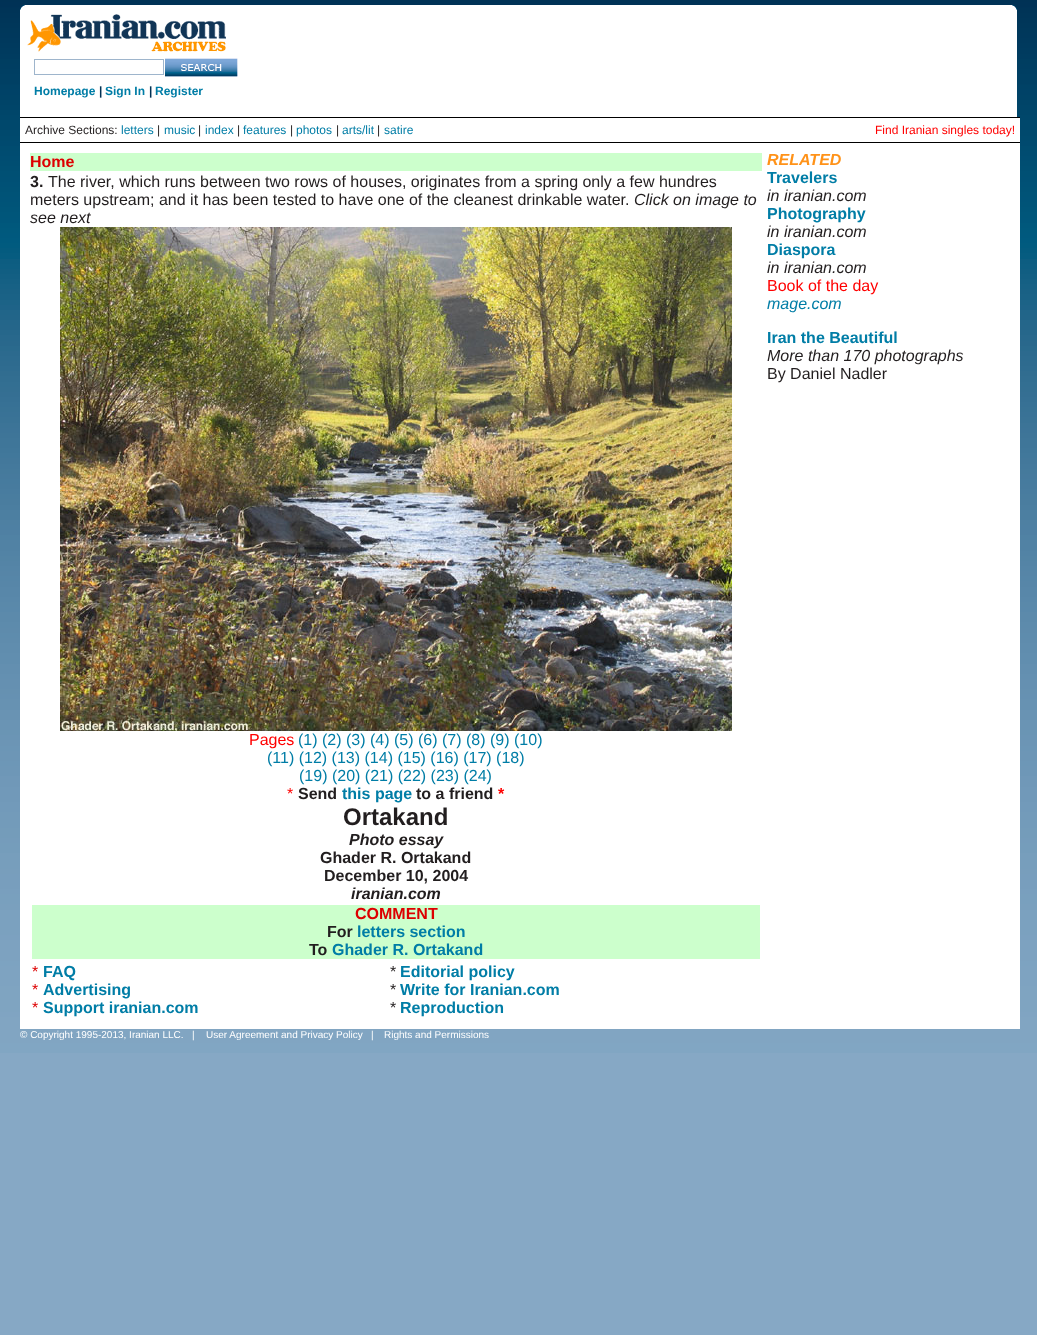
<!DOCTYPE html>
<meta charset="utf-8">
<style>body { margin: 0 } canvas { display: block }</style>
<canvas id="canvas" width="1037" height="1335"></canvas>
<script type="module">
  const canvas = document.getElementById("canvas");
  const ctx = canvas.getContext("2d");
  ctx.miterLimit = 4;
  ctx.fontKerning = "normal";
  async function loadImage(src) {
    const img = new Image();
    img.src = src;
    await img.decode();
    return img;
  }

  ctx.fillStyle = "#86a8c5";
  ctx.fillRect(0, 0, 1037, 1335);
  ctx.drawImage(await loadImage("img1.png"), 0, 0, 1037, 1053);
  ctx.fillStyle = "#ffffff";
  ctx.fillRect(20, 10, 997, 107);
  ctx.drawImage(await loadImage("img2.png"), 20, 5, 997, 5);
  ctx.drawImage(await loadImage("img3.png"), 27, 14, 199, 38);
  ctx.strokeStyle = "#9eb5cc";
  ctx.strokeRect(34.5, 59.5, 129, 15);
  ctx.drawImage(await loadImage("img4.png"), 165, 58, 73, 19);
  ctx.font = "bold 12px Liberation Sans";
  ctx.fillStyle = "#007da6";
  ctx.fillText("Homepage", 34, 95);
  ctx.fillStyle = "#003154";
  ctx.fillText("|", 99, 95);
  ctx.fillStyle = "#007da6";
  ctx.fillText("Sign In", 105, 95);
  ctx.fillStyle = "#003154";
  ctx.fillText("|", 149, 95);
  ctx.fillStyle = "#007da6";
  ctx.fillText("Register", 155, 95);
  ctx.fillStyle = "#ffffff";
  ctx.fillRect(20, 118, 1000, 24);
  ctx.fillStyle = "#000000";
  ctx.fillRect(20, 117, 1000, 1);
  ctx.font = "12px Liberation Sans";
  ctx.fillStyle = "#221e1f";
  ctx.fillText("Archive Sections:", 25, 134);
  ctx.fillStyle = "#007da6";
  ctx.fillText("letters", 121, 134);
  ctx.fillStyle = "#221e1f";
  ctx.fillText("|", 157, 134);
  ctx.fillStyle = "#007da6";
  ctx.fillText("music", 164, 134);
  ctx.fillStyle = "#221e1f";
  ctx.fillText("|", 198, 134);
  ctx.fillStyle = "#007da6";
  ctx.fillText("index", 205, 134);
  ctx.fillStyle = "#221e1f";
  ctx.fillText("|", 237, 134);
  ctx.fillStyle = "#007da6";
  ctx.fillText("features", 243, 134);
  ctx.fillStyle = "#221e1f";
  ctx.fillText("|", 290, 134);
  ctx.fillStyle = "#007da6";
  ctx.fillText("photos", 296, 134);
  ctx.fillStyle = "#221e1f";
  ctx.fillText("|", 336, 134);
  ctx.fillStyle = "#007da6";
  ctx.fillText("arts/lit", 342, 134);
  ctx.fillStyle = "#221e1f";
  ctx.fillText("|", 377, 134);
  ctx.fillStyle = "#007da6";
  ctx.fillText("satire", 384, 134);
  ctx.fillStyle = "#ff0000";
  ctx.fillText("Find Iranian singles today!", 875, 134);
  ctx.fillStyle = "#ffffff";
  ctx.fillRect(20, 143, 1000, 886);
  ctx.fillStyle = "#000000";
  ctx.fillRect(20, 142, 1000, 1);
  ctx.fillStyle = "#ccffcc";
  ctx.fillRect(30, 153, 732, 18);
  ctx.font = "bold 16px Liberation Sans";
  ctx.fillStyle = "#dd0000";
  ctx.fillText("Home", 30, 167);
  ctx.fillStyle = "#221e1f";
  ctx.fillText("3.", 30, 187);
  ctx.font = "16px Liberation Sans";
  ctx.fillText("The river, which runs between two rows of houses, originates from a spring only a few hundres", 48, 187);
  ctx.fillText("meters upstream; and it has been tested to have one of the cleanest drinkable water.", 30, 205);
  ctx.font = "italic 16px Liberation Sans";
  ctx.fillText("Click on image to", 634, 205);
  ctx.fillText("see next", 30, 223);
  ctx.drawImage(await loadImage("img5.png"), 60, 227, 672, 504);
  ctx.font = "16px Liberation Sans";
  ctx.fillStyle = "#ff0000";
  ctx.fillText("Pages", 249, 745);
  ctx.fillStyle = "#007da6";
  ctx.fillText("(1) (2) (3) (4) (5) (6) (7) (8) (9) (10)", 298, 745);
  ctx.fillText("(11) (12) (13) (14) (15) (16) (17) (18)", 267, 763);
  ctx.fillText("(19) (20) (21) (22) (23) (24)", 299, 781);
  ctx.fillStyle = "#ff0000";
  ctx.fillText("*", 287, 799);
  ctx.font = "bold 16px Liberation Sans";
  ctx.fillStyle = "#221e1f";
  ctx.fillText("Send", 298, 799);
  ctx.fillStyle = "#007da6";
  ctx.fillText("this page", 342, 799);
  ctx.fillStyle = "#221e1f";
  ctx.fillText("to a friend", 416, 799);
  ctx.fillStyle = "#ff0000";
  ctx.fillText("*", 498, 799);
  ctx.font = "bold 24px Liberation Sans";
  ctx.fillStyle = "#221e1f";
  ctx.fillText("Ortakand", 343, 825);
  ctx.font = "italic bold 16px Liberation Sans";
  ctx.fillText("Photo essay", 349, 845);
  ctx.font = "bold 16px Liberation Sans";
  ctx.fillText("Ghader R. Ortakand", 320, 863);
  ctx.fillText("December 10, 2004", 324, 881);
  ctx.font = "italic bold 16px Liberation Sans";
  ctx.fillText("iranian.com", 351, 899);
  ctx.fillStyle = "#ccffcc";
  ctx.fillRect(32, 905, 728, 54);
  ctx.font = "bold 16px Liberation Sans";
  ctx.fillStyle = "#dd0000";
  ctx.fillText("COMMENT", 355, 919);
  ctx.fillStyle = "#221e1f";
  ctx.fillText("For", 327, 937);
  ctx.fillStyle = "#007da6";
  ctx.fillText("letters section", 357, 937);
  ctx.fillStyle = "#221e1f";
  ctx.fillText("To", 309, 955);
  ctx.fillStyle = "#007da6";
  ctx.fillText("Ghader R. Ortakand", 332, 955);
  ctx.font = "16px Liberation Sans";
  ctx.fillStyle = "#dd0000";
  ctx.fillText("*", 32, 977);
  ctx.font = "bold 16px Liberation Sans";
  ctx.fillStyle = "#007da6";
  ctx.fillText("FAQ", 43, 977);
  ctx.font = "16px Liberation Sans";
  ctx.fillStyle = "#dd0000";
  ctx.fillText("*", 32, 995);
  ctx.font = "bold 16px Liberation Sans";
  ctx.fillStyle = "#007da6";
  ctx.fillText("Advertising", 43, 995);
  ctx.font = "16px Liberation Sans";
  ctx.fillStyle = "#dd0000";
  ctx.fillText("*", 32, 1013);
  ctx.font = "bold 16px Liberation Sans";
  ctx.fillStyle = "#007da6";
  ctx.fillText("Support iranian.com", 43, 1013);
  ctx.font = "16px Liberation Sans";
  ctx.fillStyle = "#221e1f";
  ctx.fillText("*", 390, 977);
  ctx.font = "bold 16px Liberation Sans";
  ctx.fillStyle = "#007da6";
  ctx.fillText("Editorial policy", 400, 977);
  ctx.font = "16px Liberation Sans";
  ctx.fillStyle = "#221e1f";
  ctx.fillText("*", 390, 995);
  ctx.font = "bold 16px Liberation Sans";
  ctx.fillStyle = "#007da6";
  ctx.fillText("Write for Iranian.com", 400, 995);
  ctx.font = "16px Liberation Sans";
  ctx.fillStyle = "#221e1f";
  ctx.fillText("*", 390, 1013);
  ctx.font = "bold 16px Liberation Sans";
  ctx.fillStyle = "#007da6";
  ctx.fillText("Reproduction", 400, 1013);
  ctx.font = "italic bold 16px Liberation Sans";
  ctx.fillStyle = "#ff9218";
  ctx.fillText("RELATED", 767, 165);
  ctx.font = "bold 16px Liberation Sans";
  ctx.fillStyle = "#007da6";
  ctx.fillText("Travelers", 767, 183);
  ctx.font = "italic 16px Liberation Sans";
  ctx.fillStyle = "#221e1f";
  ctx.fillText("in iranian.com", 767, 201);
  ctx.font = "bold 16px Liberation Sans";
  ctx.fillStyle = "#007da6";
  ctx.fillText("Photography", 767, 219);
  ctx.font = "italic 16px Liberation Sans";
  ctx.fillStyle = "#221e1f";
  ctx.fillText("in iranian.com", 767, 237);
  ctx.font = "bold 16px Liberation Sans";
  ctx.fillStyle = "#007da6";
  ctx.fillText("Diaspora", 767, 255);
  ctx.font = "italic 16px Liberation Sans";
  ctx.fillStyle = "#221e1f";
  ctx.fillText("in iranian.com", 767, 273);
  ctx.font = "16px Liberation Sans";
  ctx.fillStyle = "#ff0000";
  ctx.fillText("Book of the day", 767, 291);
  ctx.font = "italic 16px Liberation Sans";
  ctx.fillStyle = "#007da6";
  ctx.fillText("mage.com", 767, 309);
  ctx.font = "bold 16px Liberation Sans";
  ctx.fillText("Iran the Beautiful", 767, 343);
  ctx.font = "italic 16px Liberation Sans";
  ctx.fillStyle = "#221e1f";
  ctx.fillText("More than 170 photographs", 767, 361);
  ctx.font = "16px Liberation Sans";
  ctx.fillText("By Daniel Nadler", 767, 379);
  ctx.font = "10px Liberation Sans";
  ctx.fillStyle = "#ffffff";
  ctx.fillText("© Copyright 1995-2013, Iranian LLC.", 20, 1038);
  ctx.fillText("|", 192, 1038);
  ctx.fillText("User Agreement and Privacy Policy", 206, 1038);
  ctx.fillText("|", 371, 1038);
  ctx.fillText("Rights and Permissions", 384, 1038);
</script>
